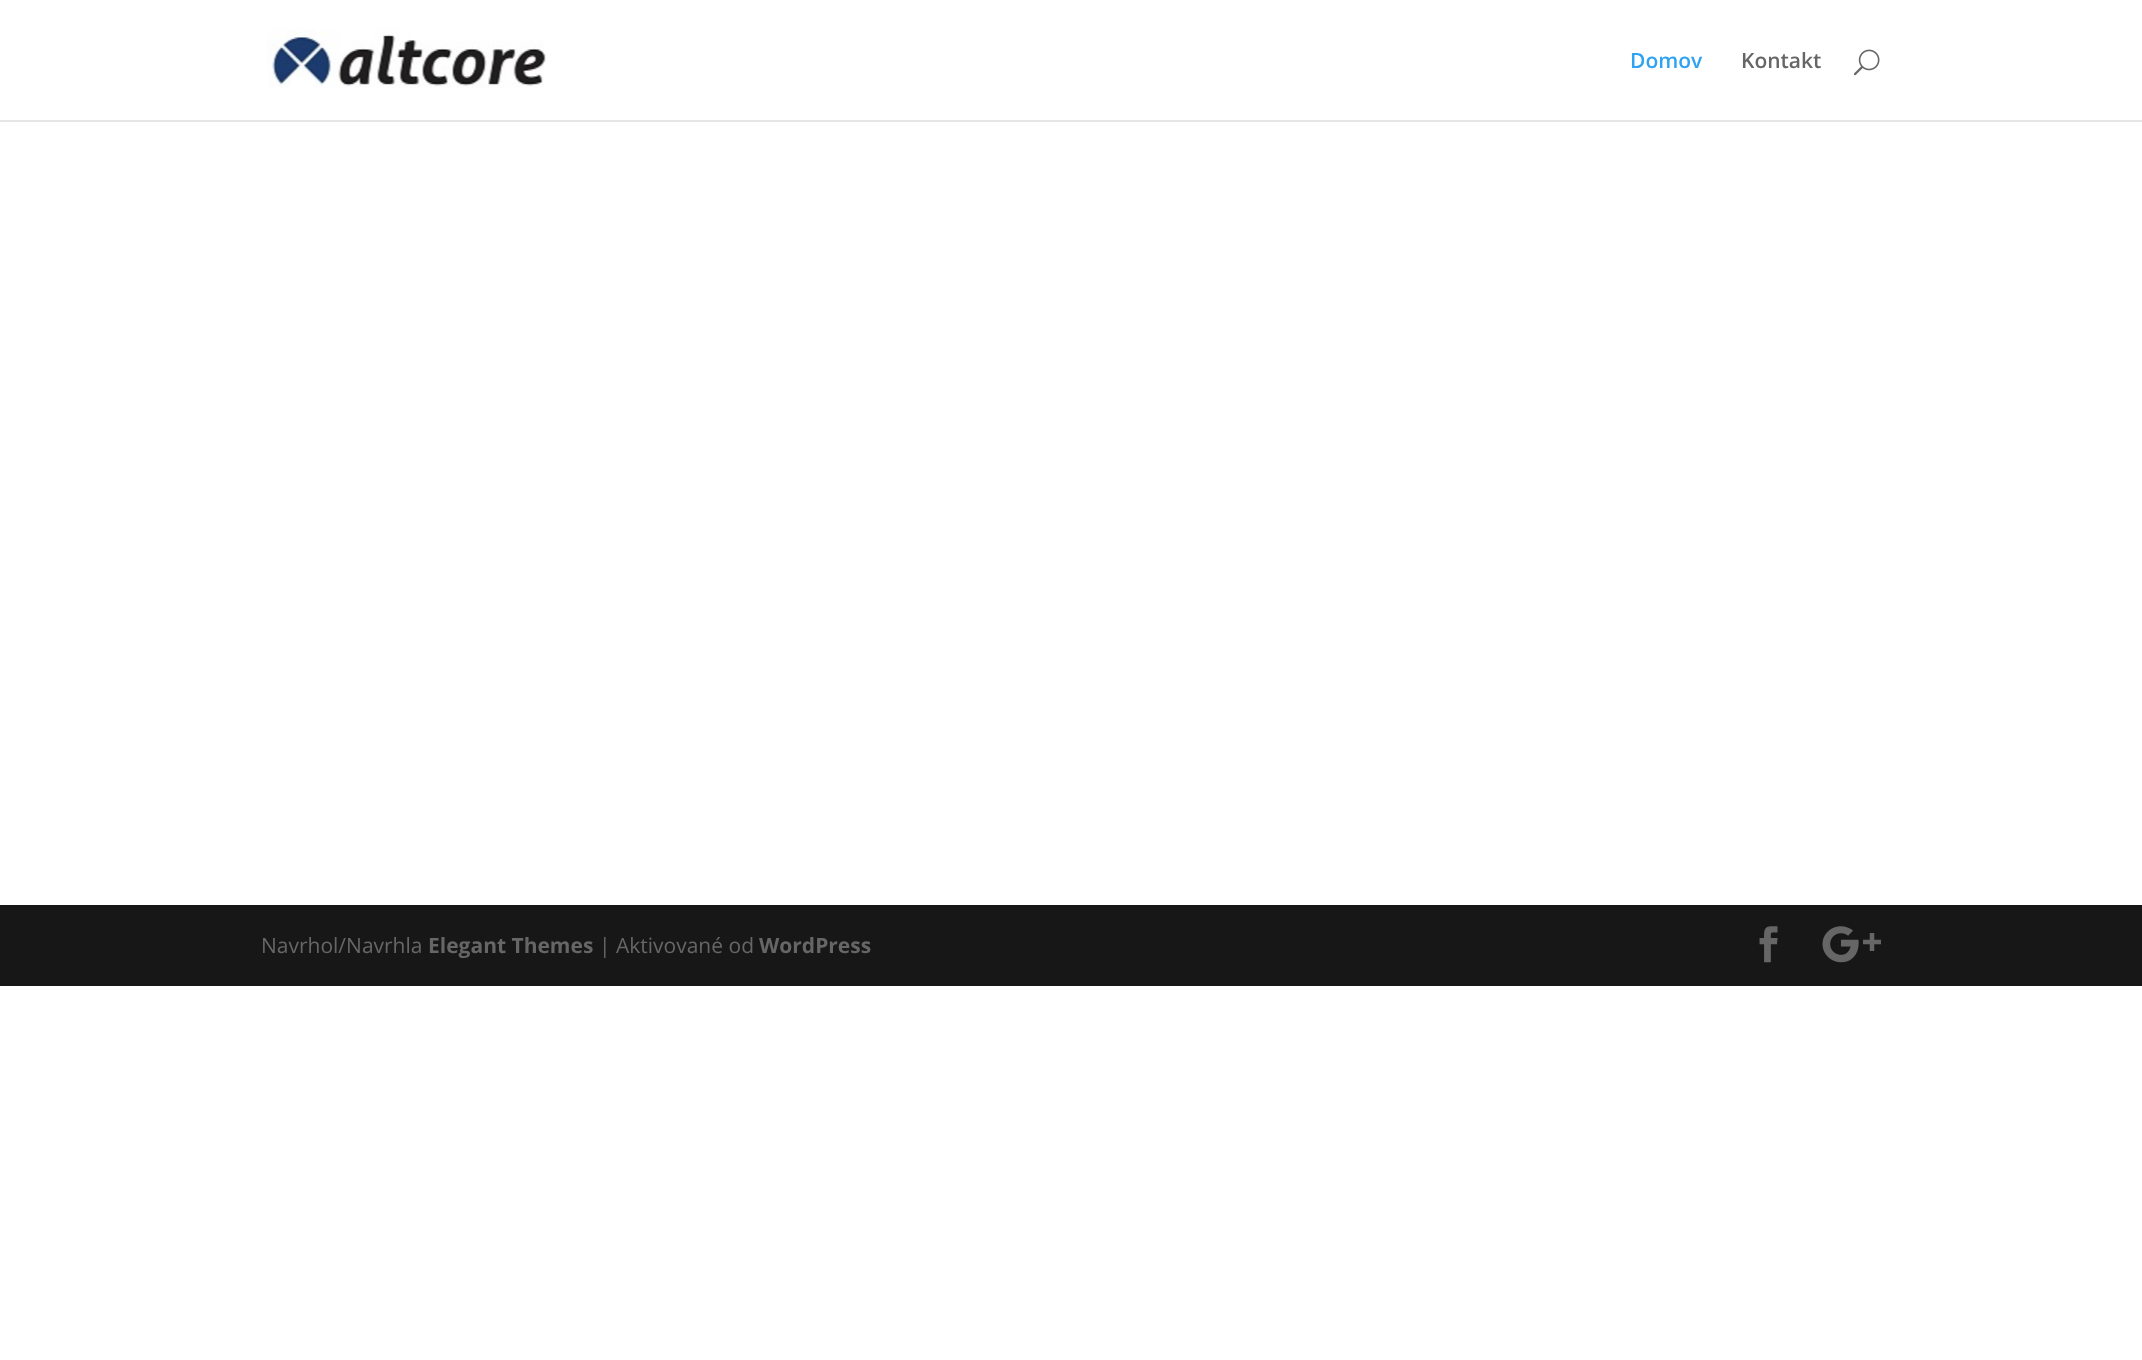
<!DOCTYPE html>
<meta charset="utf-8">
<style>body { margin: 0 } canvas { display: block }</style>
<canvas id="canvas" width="2142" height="1360"></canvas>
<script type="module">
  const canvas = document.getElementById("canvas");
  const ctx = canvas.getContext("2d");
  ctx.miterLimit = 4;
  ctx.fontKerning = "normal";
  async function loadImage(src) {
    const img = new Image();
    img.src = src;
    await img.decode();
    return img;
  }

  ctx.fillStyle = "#ffffff";
  ctx.fillRect(0, 0, 2142, 1360);
  ctx.fillStyle = "#e6e6e6";
  ctx.fillRect(0, 120, 2142, 2);
  ctx.drawImage(await loadImage("img1.png"), 267, 29, 279, 59);
  ctx.font = "600 21px Open Sans";
  ctx.fillStyle = "#2ea3f2";
  ctx.fillText("Domov", 1630, 68);
  ctx.fillStyle = "#666666";
  ctx.fillText("Kontakt", 1741, 68);
  ctx.drawImage(await loadImage("img2.png"), 1853, 49, 27, 27);
  ctx.fillStyle = "#171717";
  ctx.fillRect(0, 905, 2142, 81);
  ctx.font = "21px Open Sans";
  ctx.fillStyle = "#666666";
  ctx.fillText("Navrhol/Navrhla", 261, 953);
  ctx.font = "bold 21px Open Sans";
  ctx.fillText("Elegant Themes", 428, 953);
  ctx.font = "21px Open Sans";
  ctx.fillText("| Aktivované od", 599, 953);
  ctx.font = "bold 21px Open Sans";
  ctx.fillText("WordPress", 759, 953);
  ctx.drawImage(await loadImage("img3.png"), 1759, 926, 19, 37);
  ctx.drawImage(await loadImage("img4.png"), 1822, 926, 59, 37);
</script>
